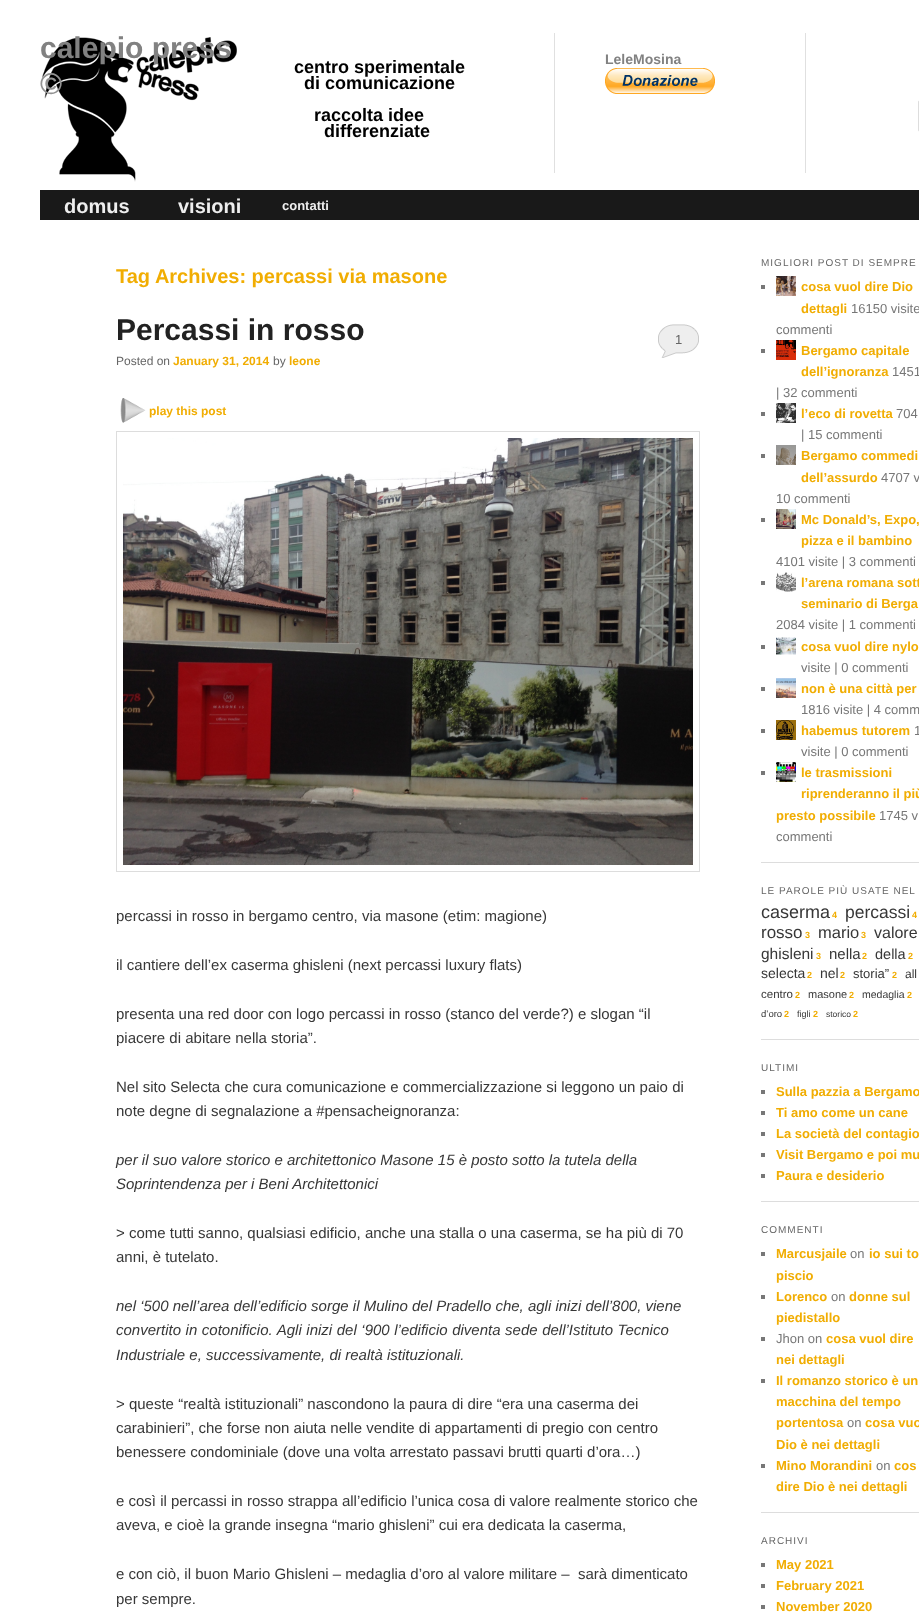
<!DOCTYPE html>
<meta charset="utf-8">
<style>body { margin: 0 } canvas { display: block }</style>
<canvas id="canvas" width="919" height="1622"></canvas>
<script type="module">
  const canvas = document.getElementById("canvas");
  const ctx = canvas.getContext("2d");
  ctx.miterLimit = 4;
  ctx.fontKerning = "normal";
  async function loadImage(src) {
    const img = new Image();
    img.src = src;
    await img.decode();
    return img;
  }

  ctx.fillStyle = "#ffffff";
  ctx.fillRect(0, 0, 919, 1622);
  ctx.drawImage(await loadImage("img1.png"), 42, 37, 195, 145);
  ctx.font = "bold 30px Liberation Sans";
  ctx.fillStyle = "#818181";
  ctx.fillText("calepio press", 40, 58);
  ctx.fillStyle = "#939393";
  ctx.fillText("©", 40, 94);
  ctx.font = "bold 18px Liberation Sans";
  ctx.fillStyle = "#000000";
  ctx.fillText("centro sperimentale", 294, 73);
  ctx.fillText("di comunicazione", 304, 89);
  ctx.fillText("raccolta idee", 314, 121);
  ctx.fillText("differenziate", 324, 137);
  ctx.fillStyle = "#e0e0e0";
  ctx.fillRect(805, 33, 1, 140);
  ctx.fillRect(554, 33, 1, 140);
  ctx.font = "bold 14px Liberation Sans";
  ctx.fillStyle = "#818181";
  ctx.fillText("LeleMosina", 605, 64);
  ctx.drawImage(await loadImage("img2.png"), 605, 68, 110, 26);
  ctx.beginPath();
  ctx.roundRect(918.5, 100.5, 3, 31, 1.5);
  ctx.strokeStyle = "#dddddd";
  ctx.stroke();
  ctx.fillStyle = "#191919";
  ctx.fillRect(40, 190, 879, 30);
  ctx.font = "bold 20px Liberation Sans";
  ctx.fillStyle = "#eeeeee";
  ctx.fillText("domus", 64, 213);
  ctx.fillText("visioni", 178, 213);
  ctx.font = "bold 13px Liberation Sans";
  ctx.fillText("contatti", 282, 210);
  ctx.font = "bold 20px Liberation Sans";
  ctx.fillStyle = "#f1ad02";
  ctx.fillText("Tag Archives: percassi via masone", 116, 283);
  ctx.font = "bold 30px Liberation Sans";
  ctx.fillStyle = "#222222";
  ctx.fillText("Percassi in rosso", 116, 340);
  ctx.fillStyle = "#eeeeee";
  ctx.fillRect(658, 324, 41, 34);
  ctx.drawImage(await loadImage("img3.png"), 657, 322, 43, 36);
  ctx.font = "13px Liberation Sans";
  ctx.fillStyle = "#666666";
  ctx.fillText("1", 675, 344);
  ctx.font = "12px Liberation Sans";
  ctx.fillText("Posted on", 116, 365);
  ctx.font = "bold 12px Liberation Sans";
  ctx.fillStyle = "#f1ad02";
  ctx.fillText("January 31, 2014", 173, 365);
  ctx.font = "12px Liberation Sans";
  ctx.fillStyle = "#666666";
  ctx.fillText("by", 273, 365);
  ctx.font = "bold 12px Liberation Sans";
  ctx.fillStyle = "#f1ad02";
  ctx.fillText("leone", 289, 365);
  ctx.drawImage(await loadImage("img4.png"), 120, 398, 26, 25);
  ctx.fillText("play this post", 149, 415);
  ctx.strokeRect(116.5, 431.5, 583, 440);
  ctx.drawImage(await loadImage("img5.png"), 123, 438, 570, 427);
  ctx.font = "15px Liberation Sans";
  ctx.fillStyle = "#373737";
  ctx.fillText("percassi in rosso in bergamo centro, via masone (etim: magione)", 116, 921);
  ctx.fillText("il cantiere dell’ex caserma ghisleni (next percassi luxury flats)", 116, 970);
  ctx.fillText("presenta una red door con logo percassi in rosso (stanco del verde?) e slogan “il", 116, 1019);
  ctx.fillText("piacere di abitare nella storia”.", 116, 1043);
  ctx.fillText("Nel sito Selecta che cura comunicazione e commercializzazione si leggono un paio di", 116, 1092);
  ctx.fillText("note degne di segnalazione a #pensacheignoranza:", 116, 1116);
  ctx.font = "italic 15px Liberation Sans";
  ctx.fillText("per il suo valore storico e architettonico Masone 15 è posto sotto la tutela della", 116, 1165);
  ctx.fillText("Soprintendenza per i Beni Architettonici", 116, 1189);
  ctx.font = "15px Liberation Sans";
  ctx.fillText("> come tutti sanno, qualsiasi edificio, anche una stalla o una caserma, se ha più di 70", 116, 1238);
  ctx.fillText("anni, è tutelato.", 116, 1262);
  ctx.font = "italic 15px Liberation Sans";
  ctx.fillText("nel ‘500 nell’area dell’edificio sorge il Mulino del Pradello che, agli inizi dell’800, viene", 116, 1311);
  ctx.wordSpacing = "0.4px";
  ctx.fillText("convertito in cotonificio. Agli inizi del ‘900 l’edificio diventa sede dell’Istituto Tecnico", 116, 1335);
  ctx.wordSpacing = "0px";
  ctx.fillText("Industriale e, successivamente, di realtà istituzionali.", 116, 1360);
  ctx.font = "15px Liberation Sans";
  ctx.fillText("> queste “realtà istituzionali” nascondono la paura di dire “era una caserma dei", 116, 1409);
  ctx.fillText("carabinieri”, che forse non aiuta nelle vendite di appartamenti di pregio con centro", 116, 1433);
  ctx.fillText("benessere condominiale (dove una volta arrestato passavi brutti quarti d’ora…)", 116, 1457);
  ctx.fillText("e così il percassi in rosso strappa all’edificio l’unica cosa di valore realmente storico che", 116, 1506);
  ctx.fillText("aveva, e cioè la grande insegna “mario ghisleni” cui era dedicata la caserma,", 116, 1530);
  ctx.fillText("e con ciò, il buon Mario Ghisleni – medaglia d’oro al valore militare –  sarà dimenticato", 116, 1579);
  ctx.fillText("per sempre.", 116, 1604);
  ctx.fillStyle = "#dddddd";
  ctx.fillRect(761, 862, 158, 1);
  ctx.letterSpacing = "1px";
  ctx.font = "10px Liberation Sans";
  ctx.fillStyle = "#666666";
  ctx.fillText("MIGLIORI POST DI SEMPRE", 761, 266);
  ctx.fillStyle = "#777777";
  ctx.fillRect(761, 285, 4, 4);
  ctx.drawImage(await loadImage("img6.png"), 776, 276, 20, 20);
  ctx.letterSpacing = "0px";
  ctx.font = "bold 13px Liberation Sans";
  ctx.fillStyle = "#f1ad02";
  ctx.fillText("cosa vuol dire Dio", 801, 291);
  ctx.fillText("dettagli", 801, 313);
  ctx.font = "13px Liberation Sans";
  ctx.fillStyle = "#777777";
  ctx.fillText("16150 visite", 851, 313);
  ctx.fillText("commenti", 776, 334);
  ctx.fillRect(761, 349, 4, 4);
  ctx.drawImage(await loadImage("img7.png"), 776, 340, 20, 20);
  ctx.font = "bold 13px Liberation Sans";
  ctx.fillStyle = "#f1ad02";
  ctx.fillText("Bergamo capitale", 801, 355);
  ctx.fillText("dell’ignoranza", 801, 376);
  ctx.font = "13px Liberation Sans";
  ctx.fillStyle = "#777777";
  ctx.fillText("1451", 892, 376);
  ctx.fillText("| 32 commenti", 776, 397);
  ctx.fillRect(761, 412, 4, 4);
  ctx.drawImage(await loadImage("img8.png"), 776, 403, 20, 20);
  ctx.font = "bold 13px Liberation Sans";
  ctx.fillStyle = "#f1ad02";
  ctx.fillText("l’eco di rovetta", 801, 418);
  ctx.font = "13px Liberation Sans";
  ctx.fillStyle = "#777777";
  ctx.fillText("704", 896, 418);
  ctx.fillText("| 15 commenti", 801, 439);
  ctx.fillRect(761, 454, 4, 4);
  ctx.drawImage(await loadImage("img9.png"), 776, 445, 20, 20);
  ctx.font = "bold 13px Liberation Sans";
  ctx.fillStyle = "#f1ad02";
  ctx.fillText("Bergamo commedi", 801, 460);
  ctx.fillText("dell’assurdo", 801, 482);
  ctx.font = "13px Liberation Sans";
  ctx.fillStyle = "#777777";
  ctx.fillText("4707 v", 881, 482);
  ctx.fillText("10 commenti", 776, 503);
  ctx.fillRect(761, 518, 4, 4);
  ctx.drawImage(await loadImage("img10.png"), 776, 509, 20, 20);
  ctx.font = "bold 13px Liberation Sans";
  ctx.fillStyle = "#f1ad02";
  ctx.fillText("Mc Donald’s, Expo,", 801, 524);
  ctx.fillText("pizza e il bambino", 801, 545);
  ctx.font = "13px Liberation Sans";
  ctx.fillStyle = "#777777";
  ctx.fillText("4101 visite | 3 commenti", 776, 566);
  ctx.fillRect(761, 581, 4, 4);
  ctx.drawImage(await loadImage("img11.png"), 776, 572, 20, 20);
  ctx.font = "bold 13px Liberation Sans";
  ctx.fillStyle = "#f1ad02";
  ctx.fillText("l’arena romana sott", 801, 587);
  ctx.fillText("seminario di Berga", 801, 608);
  ctx.font = "13px Liberation Sans";
  ctx.fillStyle = "#777777";
  ctx.fillText("2084 visite | 1 commenti", 776, 629);
  ctx.fillRect(761, 645, 4, 4);
  ctx.drawImage(await loadImage("img12.png"), 776, 637, 20, 18);
  ctx.font = "bold 13px Liberation Sans";
  ctx.fillStyle = "#f1ad02";
  ctx.fillText("cosa vuol dire nylo", 801, 651);
  ctx.font = "13px Liberation Sans";
  ctx.fillStyle = "#777777";
  ctx.fillText("visite | 0 commenti", 801, 672);
  ctx.fillRect(761, 687, 4, 4);
  ctx.drawImage(await loadImage("img13.png"), 776, 678, 20, 20);
  ctx.font = "bold 13px Liberation Sans";
  ctx.fillStyle = "#f1ad02";
  ctx.fillText("non è una città per", 801, 693);
  ctx.font = "13px Liberation Sans";
  ctx.fillStyle = "#777777";
  ctx.fillText("1816 visite | 4 comm", 801, 714);
  ctx.fillRect(761, 729, 4, 4);
  ctx.drawImage(await loadImage("img14.png"), 776, 720, 20, 20);
  ctx.font = "bold 13px Liberation Sans";
  ctx.fillStyle = "#f1ad02";
  ctx.fillText("habemus tutorem", 801, 735);
  ctx.font = "13px Liberation Sans";
  ctx.fillStyle = "#777777";
  ctx.fillText("1", 914, 735);
  ctx.fillText("visite | 0 commenti", 801, 756);
  ctx.fillRect(761, 771, 4, 4);
  ctx.drawImage(await loadImage("img15.png"), 776, 762, 20, 20);
  ctx.font = "bold 13px Liberation Sans";
  ctx.fillStyle = "#f1ad02";
  ctx.fillText("le trasmissioni", 801, 777);
  ctx.fillText("riprenderanno il più", 801, 798);
  ctx.fillText("presto possibile", 776, 820);
  ctx.font = "13px Liberation Sans";
  ctx.fillStyle = "#777777";
  ctx.fillText("1745 v", 879, 820);
  ctx.fillText("commenti", 776, 841);
  ctx.fillStyle = "#dddddd";
  ctx.fillRect(761, 1039, 158, 1);
  ctx.letterSpacing = "1px";
  ctx.font = "10px Liberation Sans";
  ctx.fillStyle = "#666666";
  ctx.fillText("LE PAROLE PIÙ USATE NEL", 761, 894);
  ctx.letterSpacing = "0px";
  ctx.font = "18px Liberation Sans";
  ctx.fillStyle = "#373737";
  ctx.fillText("caserma", 761, 918);
  ctx.font = "bold 9px Liberation Sans";
  ctx.fillStyle = "#f1ad02";
  ctx.fillText("4", 832, 918);
  ctx.font = "17.5px Liberation Sans";
  ctx.fillStyle = "#373737";
  ctx.fillText("percassi", 845, 918);
  ctx.font = "bold 9px Liberation Sans";
  ctx.fillStyle = "#f1ad02";
  ctx.fillText("4", 912, 918);
  ctx.font = "17px Liberation Sans";
  ctx.fillStyle = "#373737";
  ctx.fillText("rosso", 761, 938);
  ctx.font = "bold 9px Liberation Sans";
  ctx.fillStyle = "#f1ad02";
  ctx.fillText("3", 805, 938);
  ctx.font = "16.5px Liberation Sans";
  ctx.fillStyle = "#373737";
  ctx.fillText("mario", 818, 938);
  ctx.font = "bold 9px Liberation Sans";
  ctx.fillStyle = "#f1ad02";
  ctx.fillText("3", 861, 938);
  ctx.font = "16px Liberation Sans";
  ctx.fillStyle = "#373737";
  ctx.fillText("valore", 874, 938);
  ctx.font = "15.5px Liberation Sans";
  ctx.fillText("ghisleni", 761, 959);
  ctx.font = "bold 9px Liberation Sans";
  ctx.fillStyle = "#f1ad02";
  ctx.fillText("3", 816, 959);
  ctx.font = "15px Liberation Sans";
  ctx.fillStyle = "#373737";
  ctx.fillText("nella", 829, 959);
  ctx.font = "bold 9px Liberation Sans";
  ctx.fillStyle = "#f1ad02";
  ctx.fillText("2", 862, 959);
  ctx.font = "14.5px Liberation Sans";
  ctx.fillStyle = "#373737";
  ctx.fillText("della", 875, 959);
  ctx.font = "bold 9px Liberation Sans";
  ctx.fillStyle = "#f1ad02";
  ctx.fillText("2", 908, 959);
  ctx.font = "14px Liberation Sans";
  ctx.fillStyle = "#373737";
  ctx.fillText("selecta", 761, 978);
  ctx.font = "bold 9px Liberation Sans";
  ctx.fillStyle = "#f1ad02";
  ctx.fillText("2", 807, 978);
  ctx.font = "14px Liberation Sans";
  ctx.fillStyle = "#373737";
  ctx.fillText("nel", 820, 978);
  ctx.font = "bold 9px Liberation Sans";
  ctx.fillStyle = "#f1ad02";
  ctx.fillText("2", 840, 978);
  ctx.font = "13px Liberation Sans";
  ctx.fillStyle = "#373737";
  ctx.fillText("storia”", 853, 978);
  ctx.font = "bold 9px Liberation Sans";
  ctx.fillStyle = "#f1ad02";
  ctx.fillText("2", 892, 978);
  ctx.font = "12px Liberation Sans";
  ctx.fillStyle = "#373737";
  ctx.fillText("all", 905, 978);
  ctx.font = "11.5px Liberation Sans";
  ctx.fillText("centro", 761, 998);
  ctx.font = "bold 9px Liberation Sans";
  ctx.fillStyle = "#f1ad02";
  ctx.fillText("2", 795, 998);
  ctx.font = "11px Liberation Sans";
  ctx.fillStyle = "#373737";
  ctx.fillText("masone", 808, 998);
  ctx.font = "bold 9px Liberation Sans";
  ctx.fillStyle = "#f1ad02";
  ctx.fillText("2", 849, 998);
  ctx.font = "10.5px Liberation Sans";
  ctx.fillStyle = "#373737";
  ctx.fillText("medaglia", 862, 998);
  ctx.font = "bold 9px Liberation Sans";
  ctx.fillStyle = "#f1ad02";
  ctx.fillText("2", 907, 998);
  ctx.font = "9.5px Liberation Sans";
  ctx.fillStyle = "#373737";
  ctx.fillText("d’oro", 761, 1017);
  ctx.font = "bold 9px Liberation Sans";
  ctx.fillStyle = "#f1ad02";
  ctx.fillText("2", 784, 1017);
  ctx.font = "9px Liberation Sans";
  ctx.fillStyle = "#373737";
  ctx.fillText("figli", 797, 1017);
  ctx.font = "bold 9px Liberation Sans";
  ctx.fillStyle = "#f1ad02";
  ctx.fillText("2", 813, 1017);
  ctx.font = "8.5px Liberation Sans";
  ctx.fillStyle = "#373737";
  ctx.fillText("storico", 826, 1017);
  ctx.font = "bold 9px Liberation Sans";
  ctx.fillStyle = "#f1ad02";
  ctx.fillText("2", 853, 1017);
  ctx.fillStyle = "#dddddd";
  ctx.fillRect(761, 1201, 158, 1);
  ctx.letterSpacing = "1px";
  ctx.font = "10px Liberation Sans";
  ctx.fillStyle = "#666666";
  ctx.fillText("ULTIMI", 761, 1071);
  ctx.fillStyle = "#777777";
  ctx.fillRect(761, 1090, 4, 4);
  ctx.letterSpacing = "0px";
  ctx.font = "bold 13px Liberation Sans";
  ctx.fillStyle = "#f1ad02";
  ctx.fillText("Sulla pazzia a Bergamo", 776, 1096);
  ctx.fillStyle = "#777777";
  ctx.fillRect(761, 1111, 4, 4);
  ctx.fillStyle = "#f1ad02";
  ctx.fillText("Ti amo come un cane", 776, 1117);
  ctx.fillStyle = "#777777";
  ctx.fillRect(761, 1132, 4, 4);
  ctx.fillStyle = "#f1ad02";
  ctx.fillText("La società del contagio", 776, 1138);
  ctx.fillStyle = "#777777";
  ctx.fillRect(761, 1153, 4, 4);
  ctx.fillStyle = "#f1ad02";
  ctx.fillText("Visit Bergamo e poi mu", 776, 1159);
  ctx.fillStyle = "#777777";
  ctx.fillRect(761, 1174, 4, 4);
  ctx.fillStyle = "#f1ad02";
  ctx.fillText("Paura e desiderio", 776, 1180);
  ctx.fillStyle = "#dddddd";
  ctx.fillRect(761, 1512, 158, 1);
  ctx.letterSpacing = "1px";
  ctx.font = "10px Liberation Sans";
  ctx.fillStyle = "#666666";
  ctx.fillText("COMMENTI", 761, 1233);
  ctx.fillStyle = "#777777";
  ctx.fillRect(761, 1252, 4, 4);
  ctx.letterSpacing = "0px";
  ctx.font = "bold 13px Liberation Sans";
  ctx.fillStyle = "#f1ad02";
  ctx.fillText("Marcusjaile", 776, 1258);
  ctx.font = "13px Liberation Sans";
  ctx.fillStyle = "#777777";
  ctx.fillText("on", 850, 1258);
  ctx.font = "bold 13px Liberation Sans";
  ctx.fillStyle = "#f1ad02";
  ctx.fillText("io sui to", 869, 1258);
  ctx.fillText("piscio", 776, 1280);
  ctx.fillStyle = "#777777";
  ctx.fillRect(761, 1295, 4, 4);
  ctx.fillStyle = "#f1ad02";
  ctx.fillText("Lorenco", 776, 1301);
  ctx.font = "13px Liberation Sans";
  ctx.fillStyle = "#777777";
  ctx.fillText("on", 831, 1301);
  ctx.font = "bold 13px Liberation Sans";
  ctx.fillStyle = "#f1ad02";
  ctx.fillText("donne sul", 849, 1301);
  ctx.fillText("piedistallo", 776, 1322);
  ctx.fillStyle = "#777777";
  ctx.fillRect(761, 1337, 4, 4);
  ctx.font = "13px Liberation Sans";
  ctx.fillText("Jhon on", 776, 1343);
  ctx.font = "bold 13px Liberation Sans";
  ctx.fillStyle = "#f1ad02";
  ctx.fillText("cosa vuol dire", 826, 1343);
  ctx.fillText("nei dettagli", 776, 1364);
  ctx.fillStyle = "#777777";
  ctx.fillRect(761, 1379, 4, 4);
  ctx.fillStyle = "#f1ad02";
  ctx.fillText("Il romanzo storico è un", 776, 1385);
  ctx.fillText("macchina del tempo", 776, 1406);
  ctx.fillText("portentosa", 776, 1427);
  ctx.font = "13px Liberation Sans";
  ctx.fillStyle = "#777777";
  ctx.fillText("on", 847, 1427);
  ctx.font = "bold 13px Liberation Sans";
  ctx.fillStyle = "#f1ad02";
  ctx.fillText("cosa vuo", 865, 1427);
  ctx.fillText("Dio è nei dettagli", 776, 1449);
  ctx.fillStyle = "#777777";
  ctx.fillRect(761, 1464, 4, 4);
  ctx.fillStyle = "#f1ad02";
  ctx.fillText("Mino Morandini", 776, 1470);
  ctx.font = "13px Liberation Sans";
  ctx.fillStyle = "#777777";
  ctx.fillText("on", 876, 1470);
  ctx.font = "bold 13px Liberation Sans";
  ctx.fillStyle = "#f1ad02";
  ctx.fillText("cos", 894, 1470);
  ctx.fillText("dire Dio è nei dettagli", 776, 1491);
  ctx.letterSpacing = "1px";
  ctx.font = "10px Liberation Sans";
  ctx.fillStyle = "#666666";
  ctx.fillText("ARCHIVI", 761, 1544);
  ctx.fillStyle = "#777777";
  ctx.fillRect(761, 1563, 4, 4);
  ctx.letterSpacing = "0px";
  ctx.font = "bold 13px Liberation Sans";
  ctx.fillStyle = "#f1ad02";
  ctx.fillText("May 2021", 776, 1569);
  ctx.fillStyle = "#777777";
  ctx.fillRect(761, 1584, 4, 4);
  ctx.fillStyle = "#f1ad02";
  ctx.fillText("February 2021", 776, 1590);
  ctx.fillStyle = "#777777";
  ctx.fillRect(761, 1605, 4, 4);
  ctx.fillStyle = "#f1ad02";
  ctx.fillText("November 2020", 776, 1611);
</script>
